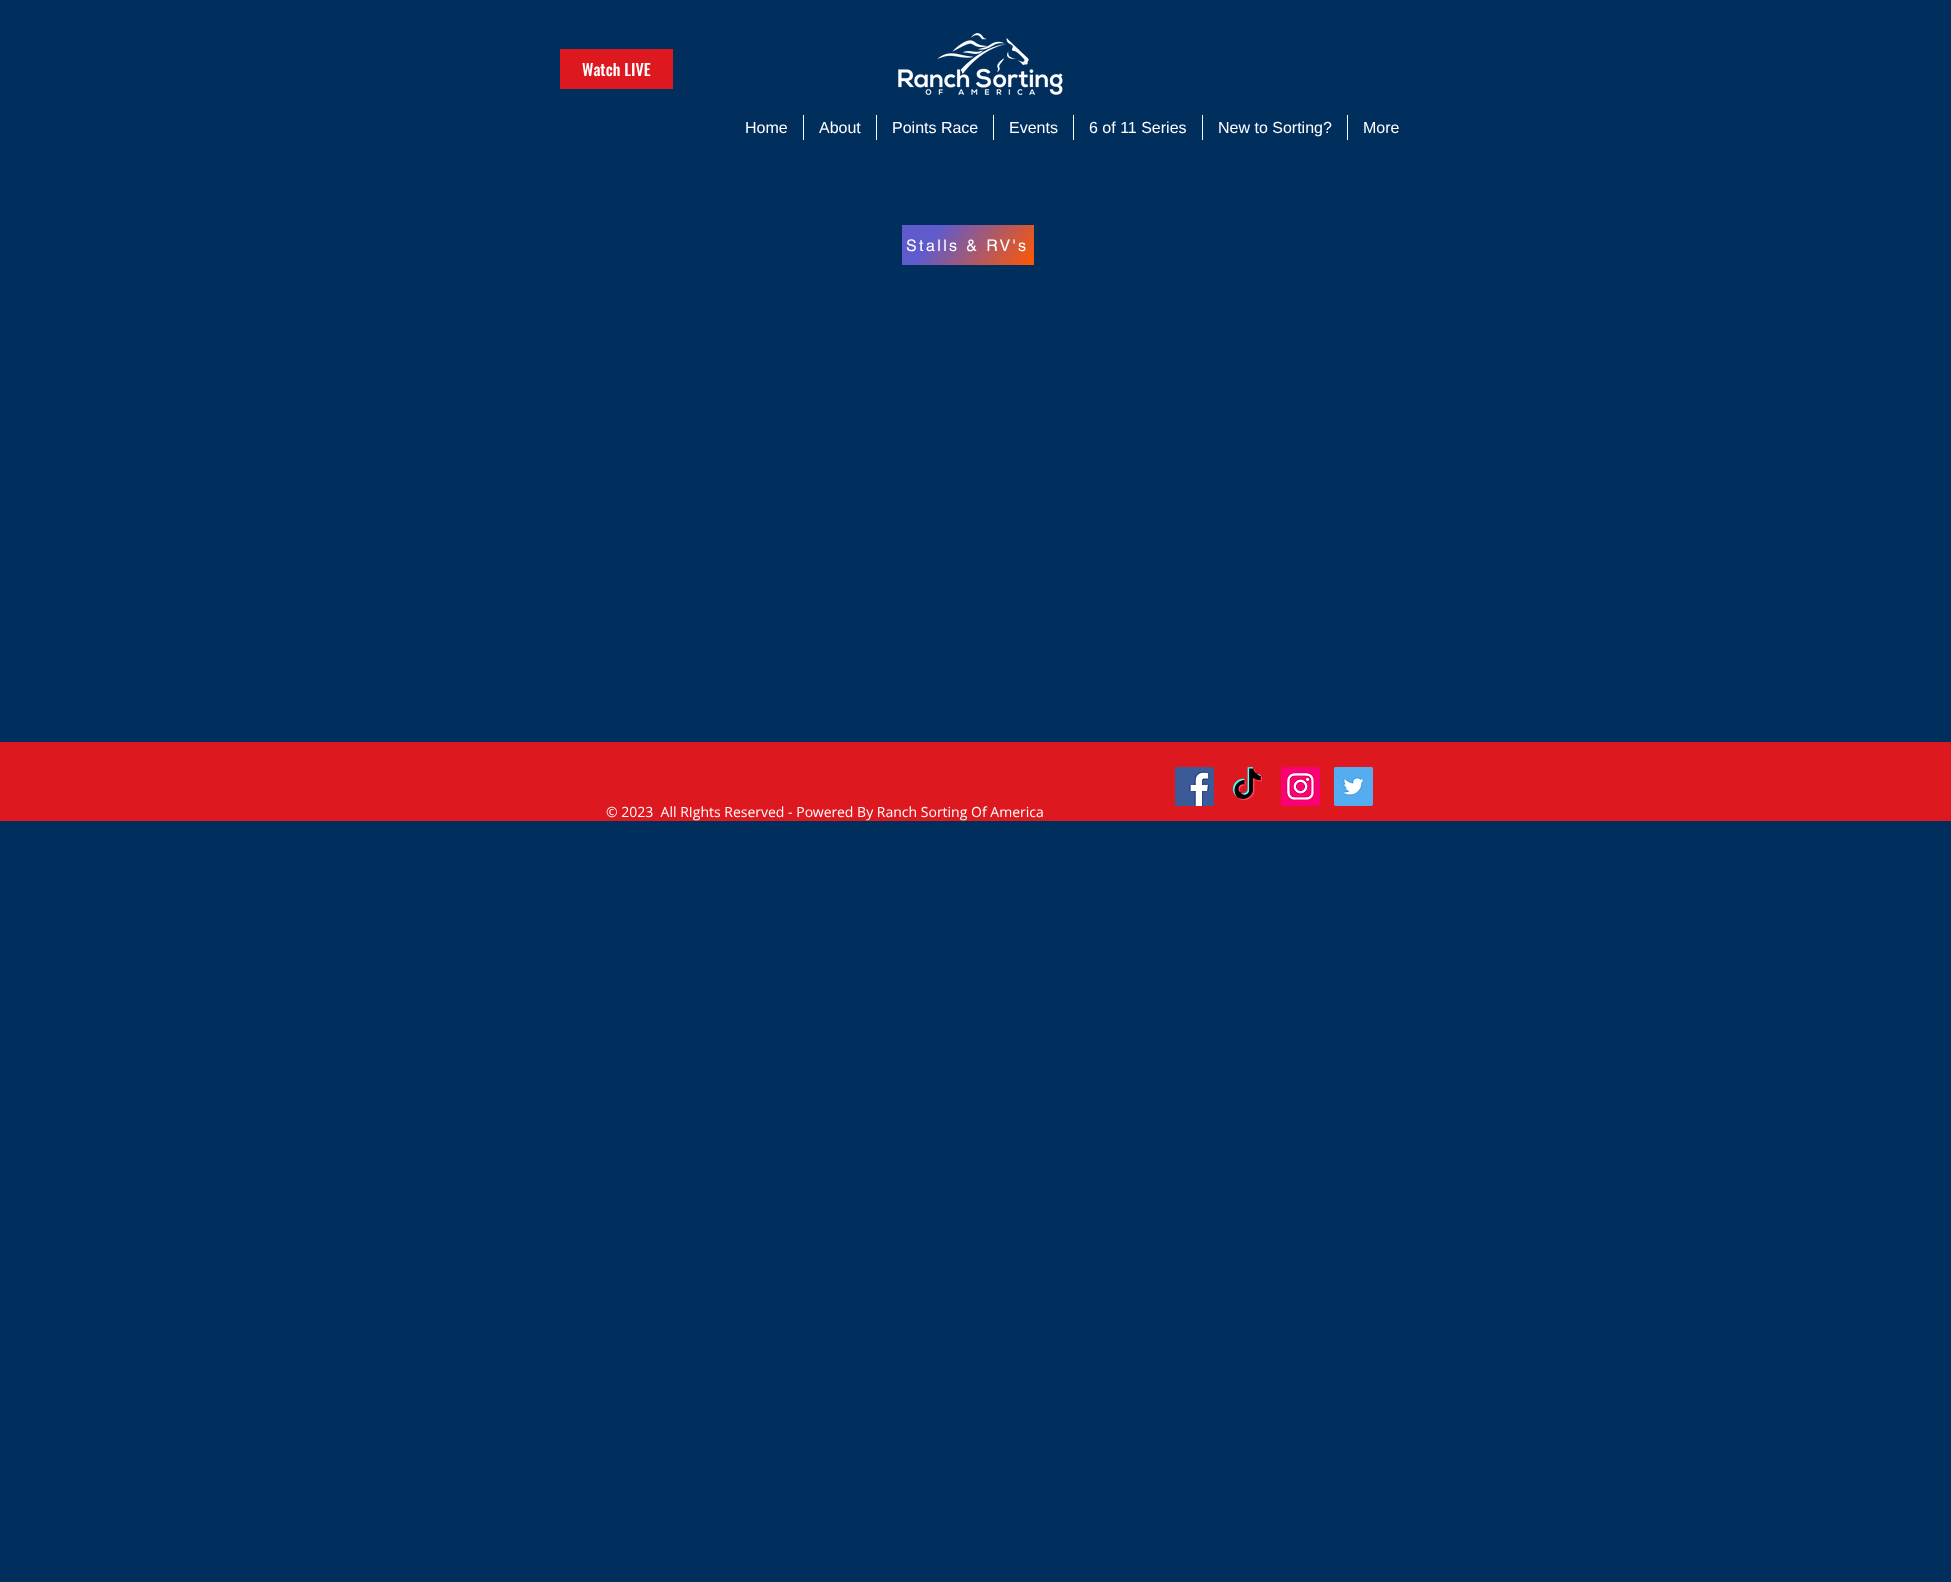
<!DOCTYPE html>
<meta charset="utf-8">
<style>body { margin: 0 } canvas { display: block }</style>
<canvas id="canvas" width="1951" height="1582"></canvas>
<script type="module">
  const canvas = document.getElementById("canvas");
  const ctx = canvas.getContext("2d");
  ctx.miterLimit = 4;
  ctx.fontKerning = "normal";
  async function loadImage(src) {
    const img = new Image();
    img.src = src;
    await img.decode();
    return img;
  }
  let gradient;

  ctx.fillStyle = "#002e5d";
  ctx.fillRect(0, 0, 1951, 1582);
  ctx.fillStyle = "#dd181f";
  ctx.fillRect(560, 49, 113, 40);
  ctx.font = "500 16px Oswald";
  ctx.fillStyle = "#ffffff";
  ctx.fillText("Watch LIVE", 582, 76);
  ctx.drawImage(await loadImage("img1.png"), 898, 32, 165, 63);
  ctx.font = "16px Liberation Sans";
  ctx.fillText("Home", 745, 133);
  ctx.fillRect(803, 115, 1, 25);
  ctx.fillText("About", 819, 133);
  ctx.fillRect(876, 115, 1, 25);
  ctx.fillText("Points Race", 892, 133);
  ctx.fillRect(993, 115, 1, 25);
  ctx.fillText("Events", 1009, 133);
  ctx.fillRect(1073, 115, 1, 25);
  ctx.fillText("6 of 11 Series", 1089, 133);
  ctx.fillRect(1202, 115, 1, 25);
  ctx.fillText("New to Sorting?", 1218, 133);
  ctx.fillRect(1347, 115, 1, 25);
  ctx.fillText("More", 1363, 133);
  gradient = ctx.createLinearGradient(915, 207, 1021, 283);
  gradient.addColorStop(0.24, "#5f5bcd");
  gradient.addColorStop(1, "#ff5700");
  ctx.fillStyle = gradient;
  ctx.fillRect(902, 225, 132, 40);
  ctx.letterSpacing = "2.4px";
  ctx.font = "16px helvetica";
  ctx.fillStyle = "#ffffff";
  ctx.fillText("Stalls & RV's", 906, 251);
  ctx.fillStyle = "#dd181f";
  ctx.fillRect(0, 742, 1951, 79);
  ctx.drawImage(await loadImage("img2.png"), 1175, 767, 39, 39);
  ctx.drawImage(await loadImage("img3.png"), 1232, 767, 31, 34);
  ctx.drawImage(await loadImage("img4.png"), 1281, 767, 39, 39);
  ctx.drawImage(await loadImage("img5.png"), 1334, 767, 39, 39);
  ctx.letterSpacing = "0px";
  ctx.font = "14px Open Sans";
  ctx.fillStyle = "#ffffff";
  ctx.fillText("© 2023  All RIghts Reserved - Powered By Ranch Sorting Of America", 606, 817);
</script>
